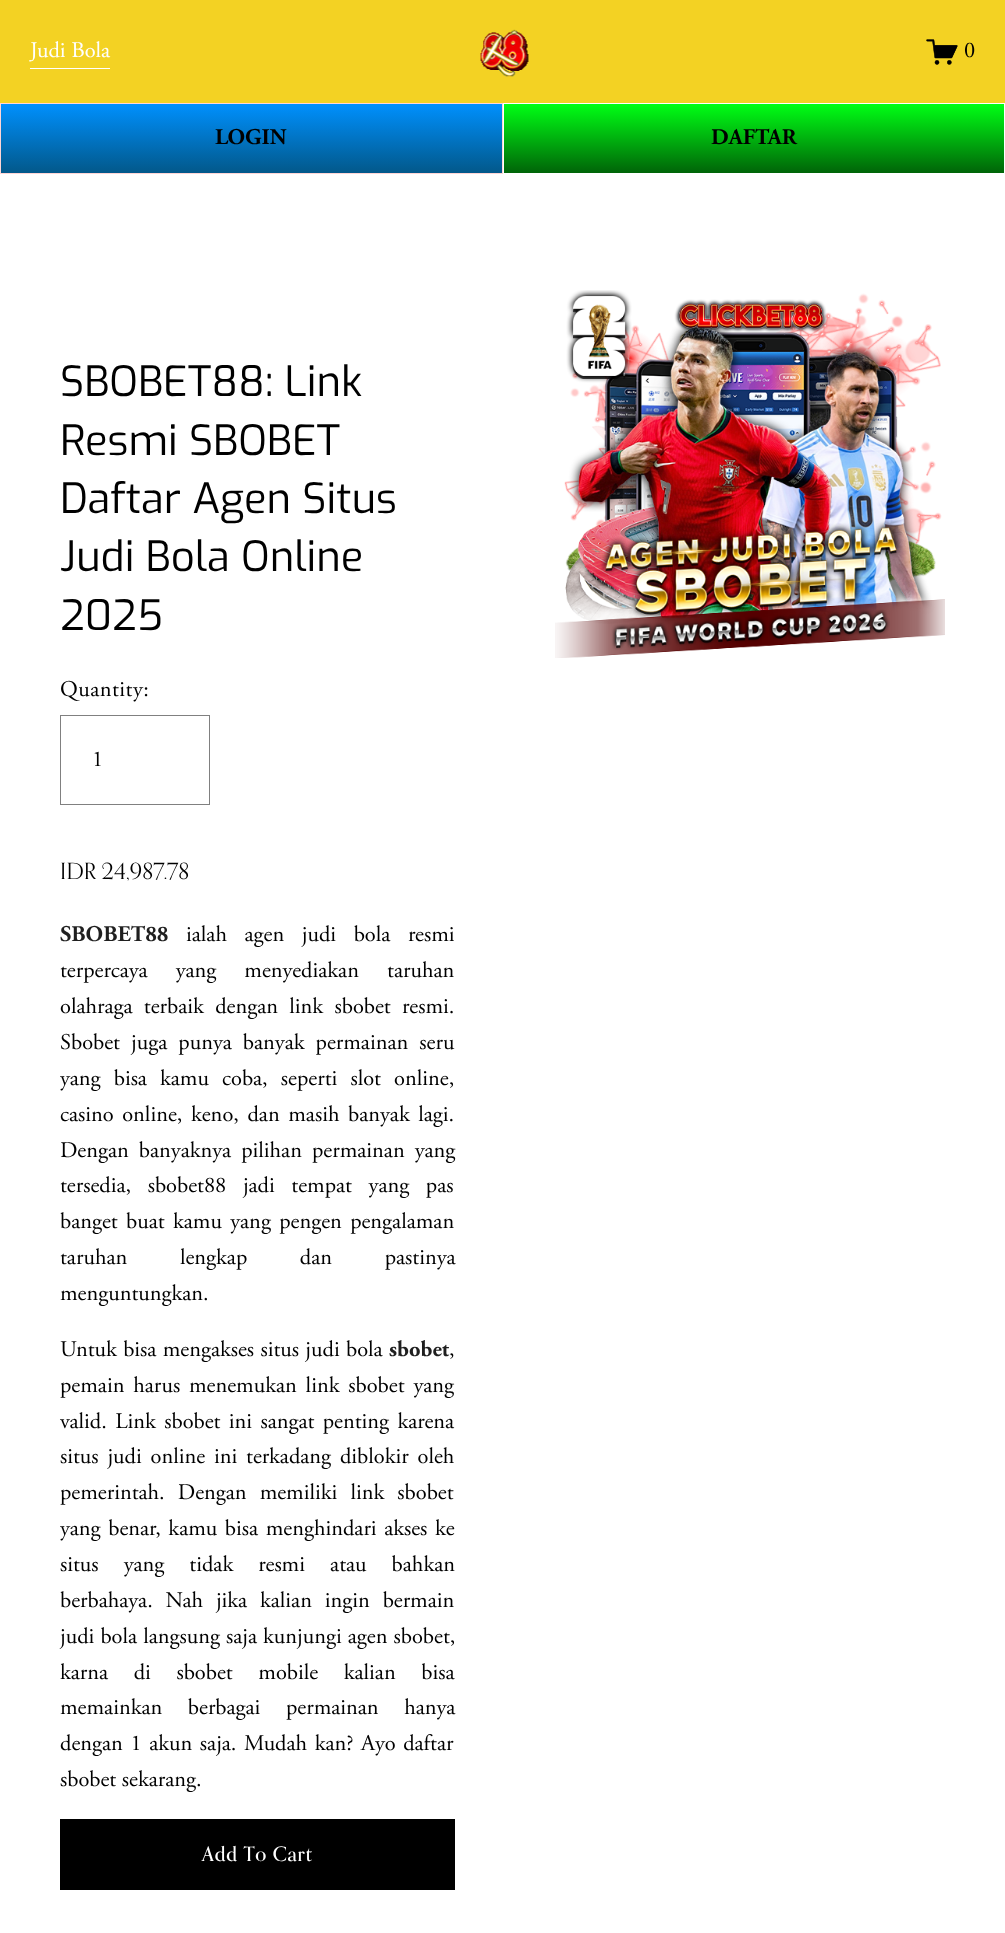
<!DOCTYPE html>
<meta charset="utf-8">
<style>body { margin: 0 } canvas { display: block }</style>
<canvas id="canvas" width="1005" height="1933"></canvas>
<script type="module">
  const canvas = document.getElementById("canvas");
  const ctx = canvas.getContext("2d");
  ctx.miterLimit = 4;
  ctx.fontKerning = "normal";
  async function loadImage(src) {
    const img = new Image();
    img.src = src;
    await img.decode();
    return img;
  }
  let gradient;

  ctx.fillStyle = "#ffffff";
  ctx.fillRect(0, 0, 1005, 1933);
  ctx.fillStyle = "#f3d223";
  ctx.fillRect(0, 0, 1005, 103);
  ctx.fillStyle = "#ffffff";
  ctx.fillRect(30, 68, 80, 1);
  ctx.font = "22.4px Adobe Garamond";
  ctx.fillText("Judi Bola", 30, 57);
  ctx.drawImage(await loadImage("img1.png"), 480, 29, 49, 48);
  ctx.drawImage(await loadImage("img2.png"), 926, 39, 32, 26);
  ctx.fillStyle = "#000000";
  ctx.fillText("0", 964, 57);
  gradient = ctx.createLinearGradient(251, 104, 251, 173);
  gradient.addColorStop(0, "#0090fd");
  gradient.addColorStop(1, "#02588a");
  ctx.fillStyle = gradient;
  ctx.fillRect(1, 104, 501, 69);
  ctx.strokeStyle = "#ffd5d5";
  ctx.strokeRect(0.5, 103.5, 502, 70);
  ctx.font = "bold 22.4px Adobe Garamond";
  ctx.fillStyle = "#000000";
  ctx.fillText("LOGIN", 215, 144);
  gradient = ctx.createLinearGradient(754, 104, 754, 173);
  gradient.addColorStop(0, "#00ff15");
  gradient.addColorStop(1, "#006408");
  ctx.fillStyle = gradient;
  ctx.fillRect(504, 104, 500, 69);
  ctx.fillStyle = "#000000";
  ctx.fillText("DAFTAR", 711, 144);
  ctx.font = "41.75px Exo";
  ctx.fillText("SBOBET88: Link", 60, 396);
  ctx.fillText("Resmi SBOBET", 60, 455);
  ctx.fillText("Daftar Agen Situs", 60, 513);
  ctx.fillText("Judi Bola Online", 60, 571);
  ctx.fillText("2025", 60, 630);
  ctx.letterSpacing = "0.5px";
  ctx.font = "22.4px Adobe Garamond";
  ctx.fillText("Quantity:", 60, 696);
  ctx.strokeStyle = "#808080";
  ctx.strokeRect(60.5, 715.5, 149, 89);
  ctx.letterSpacing = "0px";
  ctx.fillText("1", 92, 766);
  ctx.font = "22.4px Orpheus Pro";
  ctx.fillText("IDR 24,987.78", 60, 879);
  ctx.font = "bold 22.4px Adobe Garamond";
  ctx.fillStyle = "#1f1f1f";
  ctx.fillText("SBOBET88", 60, 941);
  ctx.wordSpacing = "12px";
  ctx.font = "22.4px Adobe Garamond";
  ctx.fillStyle = "#000000";
  ctx.fillText("ialah agen judi bola resmi", 186, 941);
  ctx.wordSpacing = "22.5px";
  ctx.fillText("terpercaya yang menyediakan taruhan", 60, 977);
  ctx.wordSpacing = "5.75px";
  ctx.fillText("olahraga terbaik dengan link sbobet resmi.", 60, 1013);
  ctx.wordSpacing = "5.5px";
  ctx.fillText("Sbobet juga punya banyak permainan seru", 60, 1049);
  ctx.wordSpacing = "7.5px";
  ctx.fillText("yang bisa kamu coba, seperti slot online,", 60, 1085);
  ctx.wordSpacing = "3px";
  ctx.fillText("casino online, keno, dan masih banyak lagi.", 60, 1121);
  ctx.wordSpacing = "4.5px";
  ctx.fillText("Dengan banyaknya pilihan permainan yang", 60, 1157);
  ctx.wordSpacing = "11px";
  ctx.fillText("tersedia, sbobet88 jadi tempat yang pas", 60, 1192);
  ctx.wordSpacing = "2.75px";
  ctx.fillText("banget buat kamu yang pengen pengalaman", 60, 1228);
  ctx.wordSpacing = "47px";
  ctx.fillText("taruhan lengkap dan pastinya", 60, 1264);
  ctx.wordSpacing = "0px";
  ctx.fillText("menguntungkan.", 60, 1300);
  ctx.wordSpacing = "0.75px";
  ctx.fillText("Untuk bisa mengakses situs judi bola", 60, 1356);
  ctx.wordSpacing = "0px";
  ctx.font = "bold 22.4px Adobe Garamond";
  ctx.fillStyle = "#1f1f1f";
  ctx.fillText("sbobet", 389, 1356);
  ctx.font = "22.4px Adobe Garamond";
  ctx.fillStyle = "#000000";
  ctx.fillText(",", 449, 1356);
  ctx.wordSpacing = "3.25px";
  ctx.fillText("pemain harus menemukan link sbobet yang", 60, 1392);
  ctx.wordSpacing = "2.75px";
  ctx.fillText("valid. Link sbobet ini sangat penting karena", 60, 1428);
  ctx.wordSpacing = "3.25px";
  ctx.fillText("situs judi online ini terkadang diblokir oleh", 60, 1463);
  ctx.wordSpacing = "7.5px";
  ctx.fillText("pemerintah. Dengan memiliki link sbobet", 60, 1499);
  ctx.wordSpacing = "2px";
  ctx.fillText("yang benar, kamu bisa menghindari akses ke", 60, 1535);
  ctx.wordSpacing = "19.5px";
  ctx.fillText("situs yang tidak resmi atau bahkan", 60, 1571);
  ctx.wordSpacing = "7.25px";
  ctx.fillText("berbahaya. Nah jika kalian ingin bermain", 60, 1607);
  ctx.wordSpacing = "0.5px";
  ctx.fillText("judi bola langsung saja kunjungi agen sbobet,", 60, 1643);
  ctx.wordSpacing = "20px";
  ctx.fillText("karna di sbobet mobile kalian bisa", 60, 1679);
  ctx.fillText("memainkan berbagai permainan hanya", 60, 1714);
  ctx.wordSpacing = "2px";
  ctx.fillText("dengan 1 akun saja. Mudah kan? Ayo daftar", 60, 1750);
  ctx.wordSpacing = "0px";
  ctx.fillText("sbobet sekarang.", 60, 1786);
  ctx.fillRect(60, 1819, 395, 71);
  ctx.letterSpacing = "0.75px";
  ctx.font = "500 20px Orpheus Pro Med";
  ctx.fillStyle = "#ffffff";
  ctx.fillText("Add To Cart", 202, 1861);
  ctx.drawImage(await loadImage("img3.png"), 555, 290, 390, 368);
</script>
